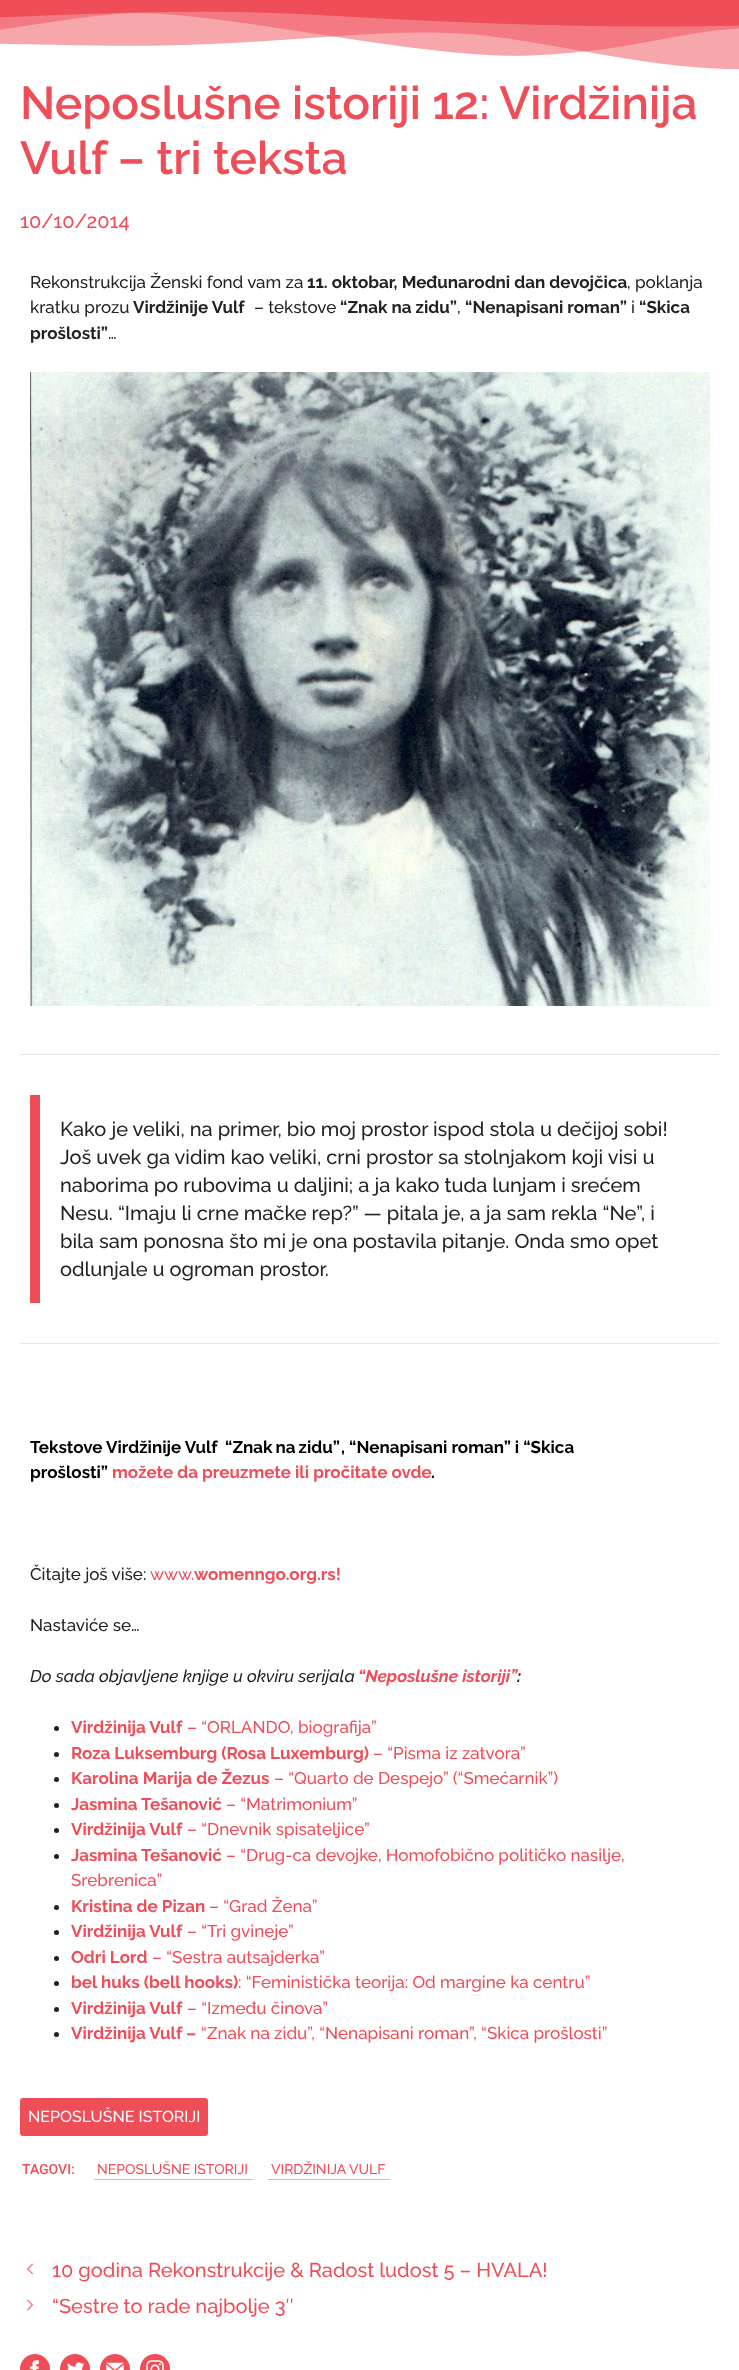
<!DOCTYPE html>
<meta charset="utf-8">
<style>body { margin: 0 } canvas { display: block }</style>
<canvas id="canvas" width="739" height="2370"></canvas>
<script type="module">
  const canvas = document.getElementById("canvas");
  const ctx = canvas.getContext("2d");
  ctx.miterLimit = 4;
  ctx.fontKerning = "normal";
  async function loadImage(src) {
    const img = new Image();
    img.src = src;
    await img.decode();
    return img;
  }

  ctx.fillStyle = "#ffffff";
  ctx.fillRect(0, 0, 739, 2370);
  ctx.drawImage(await loadImage("img1.png"), 0, 0, 739, 69);
  ctx.font = "600 46px Raleway";
  ctx.fillStyle = "#ef4d58";
  ctx.fillText("Neposlušne istoriji 12: Virdžinija", 20, 119);
  ctx.fillText("Vulf – tri teksta", 20, 174);
  ctx.font = "500 20px Raleway";
  ctx.fillText("10/10/2014", 20, 228);
  ctx.font = "500 17px Raleway";
  ctx.fillStyle = "#222222";
  ctx.fillText("Rekonstrukcija Ženski fond vam za", 30, 288);
  ctx.font = "bold 17px Raleway";
  ctx.fillText("11. oktobar, Međunarodni dan devojčica", 307, 288);
  ctx.font = "500 17px Raleway";
  ctx.fillText(", poklanja", 627, 288);
  ctx.fillText("kratku prozu", 30, 313);
  ctx.font = "bold 17px Raleway";
  ctx.fillText("Virdžinije Vulf", 133, 313);
  ctx.font = "500 17px Raleway";
  ctx.fillText("– tekstove", 254, 313);
  ctx.font = "bold 17px Raleway";
  ctx.fillText("“Znak na zidu”", 340, 313);
  ctx.font = "500 17px Raleway";
  ctx.fillText(",", 457, 313);
  ctx.font = "bold 17px Raleway";
  ctx.fillText("“Nenapisani roman”", 465, 313);
  ctx.font = "500 17px Raleway";
  ctx.fillText("i", 631, 313);
  ctx.font = "bold 17px Raleway";
  ctx.fillText("“Skica", 639, 313);
  ctx.fillText("prošlosti”", 30, 339);
  ctx.font = "500 17px Raleway";
  ctx.fillText("…", 108, 339);
  ctx.drawImage(await loadImage("img2.png"), 30, 372, 680, 634);
  ctx.fillStyle = "#e6e6e6";
  ctx.fillRect(20, 1054, 699, 1);
  ctx.fillStyle = "#ef4d58";
  ctx.fillRect(30, 1095, 10, 208);
  ctx.font = "500 20px Raleway";
  ctx.fillStyle = "#222222";
  ctx.fillText("Kako je veliki, na primer, bio moj prostor ispod stola u dečijoj sobi!", 60, 1136);
  ctx.fillText("Još uvek ga vidim kao veliki, crni prostor sa stolnjakom koji visi u", 60, 1164);
  ctx.fillText("naborima po rubovima u daljini; a ja kako tuda lunjam i srećem", 60, 1192);
  ctx.fillText("Nesu. “Imaju li crne mačke rep?” — pitala je, a ja sam rekla “Ne”, i", 60, 1220);
  ctx.fillText("bila sam ponosna što mi je ona postavila pitanje. Onda smo opet", 60, 1248);
  ctx.fillText("odlunjale u ogroman prostor.", 60, 1276);
  ctx.fillStyle = "#e6e6e6";
  ctx.fillRect(20, 1343, 699, 1);
  ctx.font = "bold 17px Raleway";
  ctx.fillStyle = "#000000";
  ctx.fillText("Tekstove Virdžinije Vulf", 30, 1453);
  ctx.wordSpacing = "-1px";
  ctx.fillText("“Znak na zidu”", 225, 1453);
  ctx.wordSpacing = "0px";
  ctx.fillText(", “Nenapisani roman” i “Skica", 341, 1453);
  ctx.fillText("prošlosti”", 30, 1478);
  ctx.fillStyle = "#ef4d58";
  ctx.fillText("možete da preuzmete ili pročitate ovde", 112, 1478);
  ctx.fillStyle = "#000000";
  ctx.fillText(".", 431, 1478);
  ctx.font = "500 17px Raleway";
  ctx.fillStyle = "#222222";
  ctx.fillText("Čitajte još više:", 30, 1580);
  ctx.fillStyle = "#ef4d58";
  ctx.fillText("www.", 150, 1580);
  ctx.font = "bold 17px Raleway";
  ctx.fillText("womenngo.org.rs!", 194, 1580);
  ctx.font = "500 17px Raleway";
  ctx.fillStyle = "#222222";
  ctx.fillText("Nastaviće se…", 30, 1631);
  ctx.font = "italic 500 17px Raleway";
  ctx.fillText("Do sada objavljene knjige u okviru serijala", 30, 1682);
  ctx.font = "italic bold 17px Raleway";
  ctx.fillStyle = "#ef4d58";
  ctx.fillText("“Neposlušne istoriji”", 358, 1682);
  ctx.fillStyle = "#222222";
  ctx.fillText(":", 517, 1682);
  ctx.beginPath();
  ctx.arc(56.5, 1728.5, 2.5, 0, Math.PI * 2);
  ctx.fill();
  ctx.font = "bold 17px Raleway";
  ctx.fillStyle = "#ef4d58";
  ctx.fillText("Virdžinija Vulf", 71, 1733);
  ctx.font = "500 17px Raleway";
  ctx.fillText("– “ORLANDO, biografija”", 187, 1733);
  ctx.fillStyle = "#222222";
  ctx.beginPath();
  ctx.arc(56.5, 1754.5, 2.5, 0, Math.PI * 2);
  ctx.fill();
  ctx.font = "bold 17px Raleway";
  ctx.fillStyle = "#ef4d58";
  ctx.fillText("Roza Luksemburg (Rosa Luxemburg)", 71, 1759);
  ctx.font = "500 17px Raleway";
  ctx.fillText("– “Pisma iz zatvora”", 373, 1759);
  ctx.fillStyle = "#222222";
  ctx.beginPath();
  ctx.arc(56.5, 1779.5, 2.5, 0, Math.PI * 2);
  ctx.fill();
  ctx.font = "bold 17px Raleway";
  ctx.fillStyle = "#ef4d58";
  ctx.fillText("Karolina Marija de Žezus", 71, 1784);
  ctx.font = "500 17px Raleway";
  ctx.fillText("– “Quarto de Despejo” (“Smećarnik”)", 274, 1784);
  ctx.fillStyle = "#222222";
  ctx.beginPath();
  ctx.arc(56.5, 1805.5, 2.5, 0, Math.PI * 2);
  ctx.fill();
  ctx.font = "bold 17px Raleway";
  ctx.fillStyle = "#ef4d58";
  ctx.fillText("Jasmina Tešanović", 71, 1810);
  ctx.font = "500 17px Raleway";
  ctx.fillText("– “Matrimonium”", 226, 1810);
  ctx.fillStyle = "#222222";
  ctx.beginPath();
  ctx.arc(56.5, 1830.5, 2.5, 0, Math.PI * 2);
  ctx.fill();
  ctx.font = "bold 17px Raleway";
  ctx.fillStyle = "#ef4d58";
  ctx.fillText("Virdžinija Vulf", 71, 1835);
  ctx.font = "500 17px Raleway";
  ctx.fillText("– “Dnevnik spisateljice”", 187, 1835);
  ctx.fillStyle = "#222222";
  ctx.beginPath();
  ctx.arc(56.5, 1856.5, 2.5, 0, Math.PI * 2);
  ctx.fill();
  ctx.font = "bold 17px Raleway";
  ctx.fillStyle = "#ef4d58";
  ctx.fillText("Jasmina Tešanović", 71, 1861);
  ctx.font = "500 17px Raleway";
  ctx.fillText("– “Drug-ca devojke, Homofobično političko nasilje,", 226, 1861);
  ctx.fillText("Srebrenica”", 71, 1886);
  ctx.fillStyle = "#222222";
  ctx.beginPath();
  ctx.arc(56.5, 1907.5, 2.5, 0, Math.PI * 2);
  ctx.fill();
  ctx.font = "bold 17px Raleway";
  ctx.fillStyle = "#ef4d58";
  ctx.fillText("Kristina de Pizan", 71, 1912);
  ctx.font = "500 17px Raleway";
  ctx.fillText("– “Grad Žena”", 209, 1912);
  ctx.fillStyle = "#222222";
  ctx.beginPath();
  ctx.arc(56.5, 1932.5, 2.5, 0, Math.PI * 2);
  ctx.fill();
  ctx.font = "bold 17px Raleway";
  ctx.fillStyle = "#ef4d58";
  ctx.fillText("Virdžinija Vulf", 71, 1937);
  ctx.font = "500 17px Raleway";
  ctx.fillText("– “Tri gvineje”", 187, 1937);
  ctx.fillStyle = "#222222";
  ctx.beginPath();
  ctx.arc(56.5, 1958.5, 2.5, 0, Math.PI * 2);
  ctx.fill();
  ctx.font = "bold 17px Raleway";
  ctx.fillStyle = "#ef4d58";
  ctx.fillText("Odri Lord", 71, 1963);
  ctx.font = "500 17px Raleway";
  ctx.fillText("– “Sestra autsajderka”", 152, 1963);
  ctx.fillStyle = "#222222";
  ctx.beginPath();
  ctx.arc(56.5, 1983.5, 2.5, 0, Math.PI * 2);
  ctx.fill();
  ctx.font = "bold 17px Raleway";
  ctx.fillStyle = "#ef4d58";
  ctx.fillText("bel huks (bell hooks)", 71, 1988);
  ctx.font = "500 17px Raleway";
  ctx.fillText(": “Feministička teorija: Od margine ka centru”", 238, 1988);
  ctx.fillStyle = "#222222";
  ctx.beginPath();
  ctx.arc(56.5, 2009.5, 2.5, 0, Math.PI * 2);
  ctx.fill();
  ctx.font = "bold 17px Raleway";
  ctx.fillStyle = "#ef4d58";
  ctx.fillText("Virdžinija Vulf", 71, 2014);
  ctx.font = "500 17px Raleway";
  ctx.fillText("– “Između činova”", 187, 2014);
  ctx.fillStyle = "#222222";
  ctx.beginPath();
  ctx.arc(56.5, 2034.5, 2.5, 0, Math.PI * 2);
  ctx.fill();
  ctx.font = "bold 17px Raleway";
  ctx.fillStyle = "#ef4d58";
  ctx.fillText("Virdžinija Vulf –", 71, 2039);
  ctx.font = "500 17px Raleway";
  ctx.fillText("“Znak na zidu”, “Nenapisani roman”, “Skica prošlosti”", 201, 2039);
  ctx.beginPath();
  ctx.roundRect(20, 2098, 188, 38, 3);
  ctx.fill();
  ctx.font = "500 16px Raleway";
  ctx.fillStyle = "#ffffff";
  ctx.fillText("NEPOSLUŠNE ISTORIJI", 28, 2122);
  ctx.font = "500 14px Roboto";
  ctx.fillStyle = "#ef4d58";
  ctx.fillText("TAGOVI:", 22, 2174);
  ctx.font = "500 14px Raleway";
  ctx.fillText("NEPOSLUŠNE ISTORIJI", 97, 2174);
  ctx.fillStyle = "#c0c0c0";
  ctx.fillRect(94, 2179, 159, 1);
  ctx.fillStyle = "#ef4d58";
  ctx.fillText("VIRDŽINIJA VULF", 271, 2174);
  ctx.fillStyle = "#c0c0c0";
  ctx.fillRect(268, 2179, 122, 1);
  ctx.drawImage(await loadImage("img3.png"), 26, 2263, 8, 12);
  ctx.font = "500 20px Raleway";
  ctx.fillStyle = "#ef4d58";
  ctx.fillText("10 godina Rekonstrukcije & Radost ludost 5 – HVALA!", 52, 2277);
  ctx.drawImage(await loadImage("img4.png"), 26, 2299, 8, 12);
  ctx.fillText("“Sestre to rade najbolje 3″", 52, 2313);
  ctx.drawImage(await loadImage("img5.png"), 20, 2354, 30, 16);
  ctx.drawImage(await loadImage("img6.png"), 60, 2354, 30, 16);
  ctx.drawImage(await loadImage("img7.png"), 100, 2354, 30, 16);
  ctx.drawImage(await loadImage("img8.png"), 140, 2354, 30, 16);
</script>
